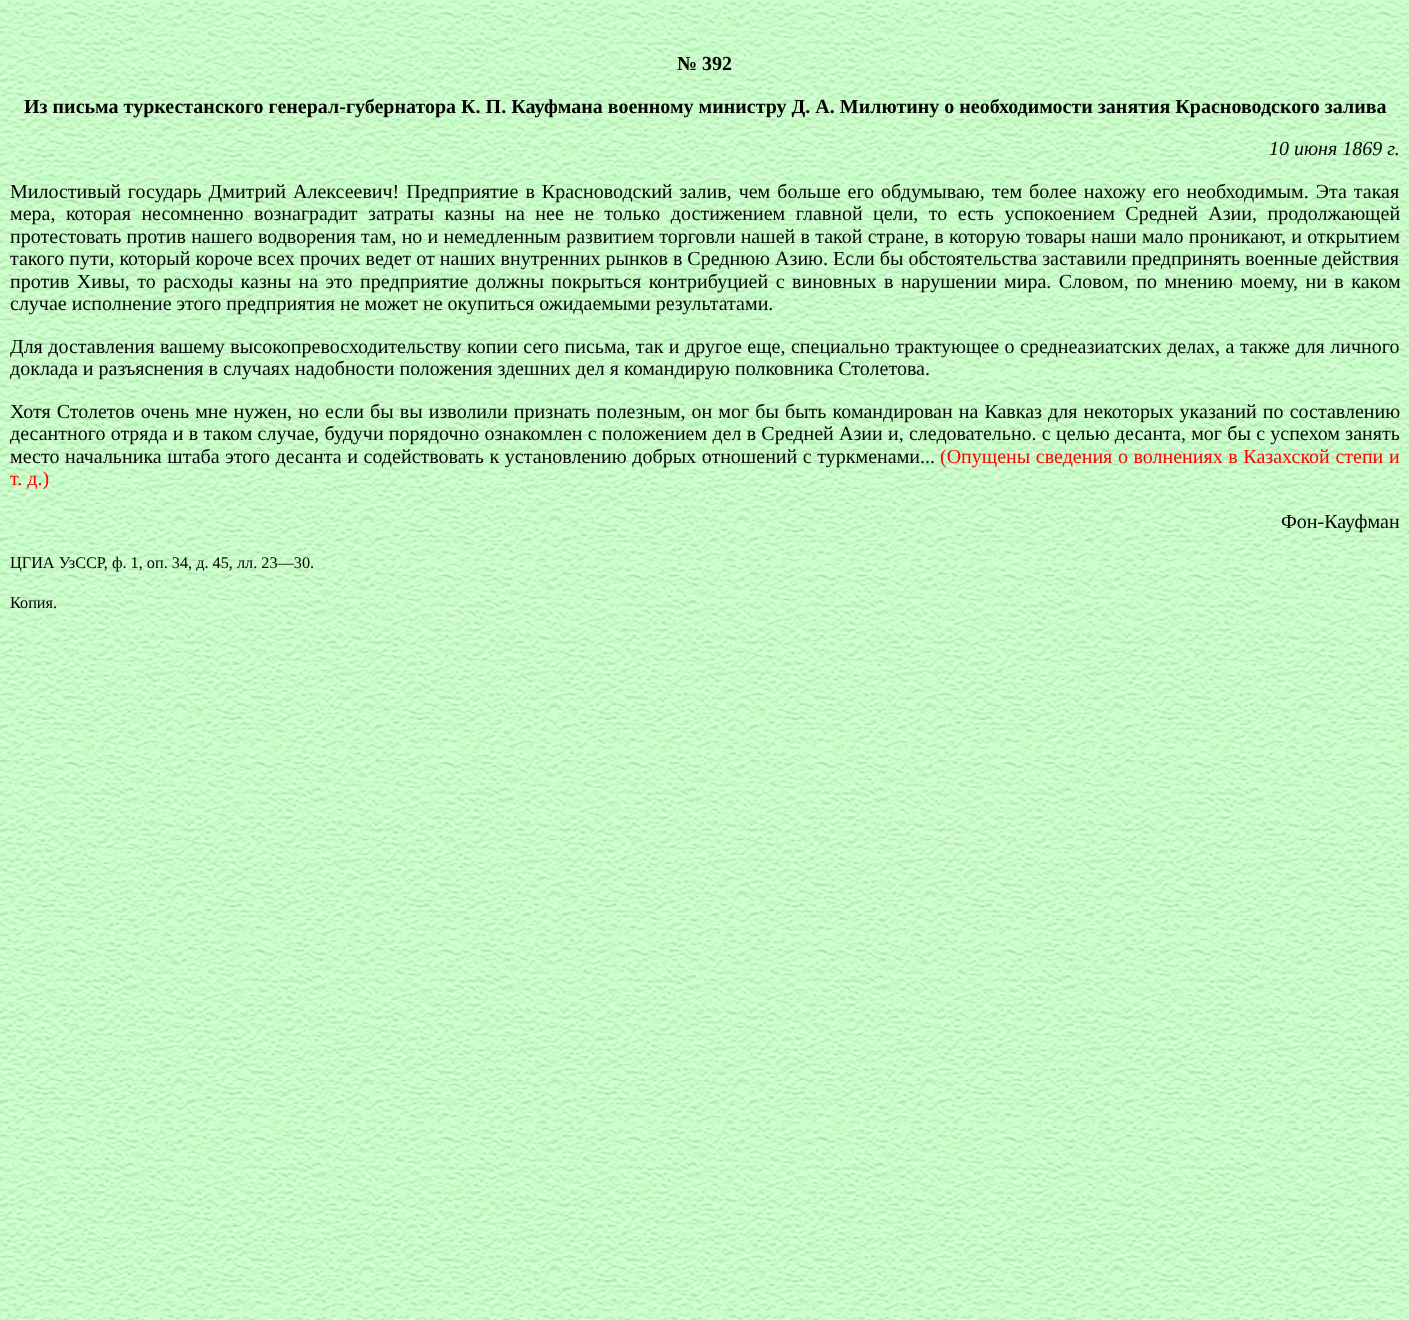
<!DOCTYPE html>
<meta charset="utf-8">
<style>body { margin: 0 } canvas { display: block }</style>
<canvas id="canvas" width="1409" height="1320"></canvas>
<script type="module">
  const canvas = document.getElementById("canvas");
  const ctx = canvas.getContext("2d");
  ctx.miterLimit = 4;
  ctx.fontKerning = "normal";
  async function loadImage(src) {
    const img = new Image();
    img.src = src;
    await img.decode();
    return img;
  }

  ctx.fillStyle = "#ffffff";
  ctx.fillRect(0, 0, 1409, 1320);
  ctx.drawImage(await loadImage("img1.png"), 0, 0, 1409, 1320);
  ctx.font = "bold 20px Liberation Serif";
  ctx.fillStyle = "#000000";
  ctx.fillText("№ 392", 677, 70);
  ctx.fillText("Из письма туркестанского генерал-губернатора К. П. Кауфмана военному министру Д. А. Милютину о необходимости занятия Красноводского залива", 24, 113);
  ctx.font = "italic 20px Liberation Serif";
  ctx.fillText("10 июня 1869 г.", 1269, 155);
  ctx.wordSpacing = "2px";
  ctx.font = "20px Liberation Serif";
  ctx.fillText("Милостивый государь Дмитрий Алексеевич! Предприятие в Красноводский залив, чем больше его обдумываю, тем более нахожу его необходимым. Эта такая", 10, 198);
  ctx.wordSpacing = "5.5px";
  ctx.fillText("мера, которая несомненно вознаградит затраты казны на нее не только достижением главной цели, то есть успокоением Средней Азии, продолжающей", 10, 220);
  ctx.wordSpacing = "0.25px";
  ctx.fillText("протестовать против нашего водворения там, но и немедленным развитием торговли нашей в такой стране, в которую товары наши мало проникают, и открытием", 10, 243);
  ctx.wordSpacing = "0px";
  ctx.fillText("такого пути, который короче всех прочих ведет от наших внутренних рынков в Среднюю Азию. Если бы обстоятельства заставили предпринять военные действия", 10, 265);
  ctx.wordSpacing = "2.5px";
  ctx.fillText("против Хивы, то расходы казны на это предприятие должны покрыться контрибуцией с виновных в нарушении мира. Словом, по мнению моему, ни в каком", 10, 288);
  ctx.wordSpacing = "0px";
  ctx.fillText("случае исполнение этого предприятия не может не окупиться ожидаемыми результатами.", 10, 310);
  ctx.wordSpacing = "0.5px";
  ctx.fillText("Для доставления вашему высокопревосходительству копии сего письма, так и другое еще, специально трактующее о среднеазиатских делах, а также для личного", 10, 353);
  ctx.wordSpacing = "0px";
  ctx.fillText("доклада и разъяснения в случаях надобности положения здешних дел я командирую полковника Столетова.", 10, 375);
  ctx.wordSpacing = "1.1px";
  ctx.fillText("Хотя Столетов очень мне нужен, но если бы вы изволили признать полезным, он мог бы быть командирован на Кавказ для некоторых указаний по составлению", 10, 418);
  ctx.wordSpacing = "0.25px";
  ctx.fillText("десантного отряда и в таком случае, будучи порядочно ознакомлен с положением дел в Средней Азии и, следовательно. с целью десанта, мог бы с успехом занять", 10, 440);
  ctx.wordSpacing = "0.6px";
  ctx.fillText("место начальника штаба этого десанта и содействовать к установлению добрых отношений с туркменами...", 10, 463);
  ctx.fillStyle = "#ff0000";
  ctx.fillText("(Опущены сведения о волнениях в Казахской степи и", 940, 463);
  ctx.wordSpacing = "0px";
  ctx.fillText("т. д.)", 10, 485);
  ctx.fillStyle = "#000000";
  ctx.fillText("Фон-Кауфман", 1281, 528);
  ctx.font = "16.25px Liberation Serif";
  ctx.fillText("ЦГИА УзССР, ф. 1, оп. 34, д. 45, лл. 23—30.", 10, 568);
  ctx.fillText("Копия.", 10, 608);
</script>
